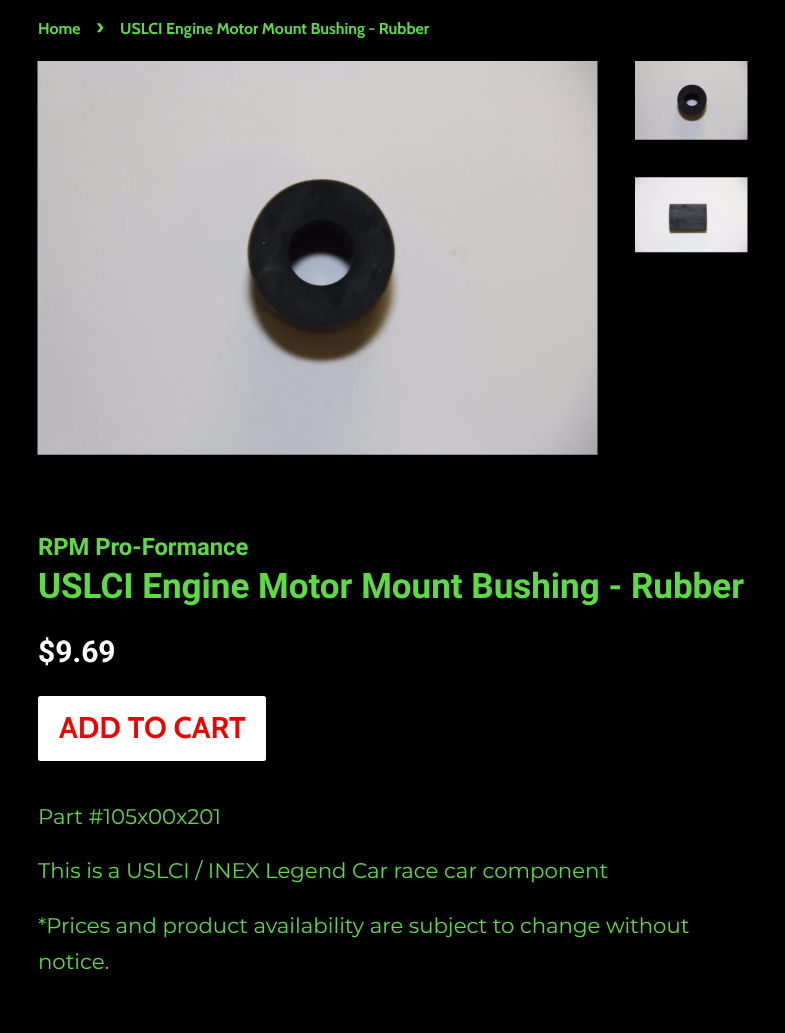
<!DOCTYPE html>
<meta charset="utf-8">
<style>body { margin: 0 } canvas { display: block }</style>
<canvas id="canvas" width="785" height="1033"></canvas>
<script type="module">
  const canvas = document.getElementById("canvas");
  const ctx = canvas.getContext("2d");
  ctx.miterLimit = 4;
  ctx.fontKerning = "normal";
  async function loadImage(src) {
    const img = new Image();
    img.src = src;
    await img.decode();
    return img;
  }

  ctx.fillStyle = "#000000";
  ctx.fillRect(0, 0, 785, 1033);
  ctx.font = "bold 15.9px Cabin";
  ctx.fillStyle = "#5bdc41";
  ctx.fillText("Home", 38, 34);
  ctx.font = "bold 22px Cabin";
  ctx.fillText("›", 96, 34);
  ctx.font = "bold 15.9px Cabin";
  ctx.fillText("USLCI Engine Motor Mount Bushing - Rubber", 120, 34);
  ctx.drawImage(await loadImage("img1.png"), 37, 61, 561, 394);
  ctx.drawImage(await loadImage("img2.png"), 635, 61, 113, 79);
  ctx.drawImage(await loadImage("img3.png"), 635, 177, 113, 76);
  ctx.font = "bold 23.75px Roboto";
  ctx.fillText("RPM Pro-Formance", 38, 555);
  ctx.font = "bold 35px Roboto";
  ctx.fillText("USLCI Engine Motor Mount Bushing - Rubber", 38, 598);
  ctx.font = "bold 30px Roboto";
  ctx.fillStyle = "#ffffff";
  ctx.fillText("$9.69", 38, 662);
  ctx.beginPath();
  ctx.roundRect(38, 696, 228, 65, 2.5);
  ctx.fill();
  ctx.font = "bold 30px Cabin";
  ctx.fillStyle = "#f30000";
  ctx.fillText("ADD TO CART", 59, 738);
  ctx.font = "21.25px Montserrat";
  ctx.fillStyle = "#5bdc41";
  ctx.fillText("Part #105x00x201", 38, 824);
  ctx.fillText("This is a USLCI / INEX Legend Car race car component", 38, 878);
  ctx.fillText("*Prices and product availability are subject to change without", 38, 933);
  ctx.fillText("notice.", 38, 969);
</script>
